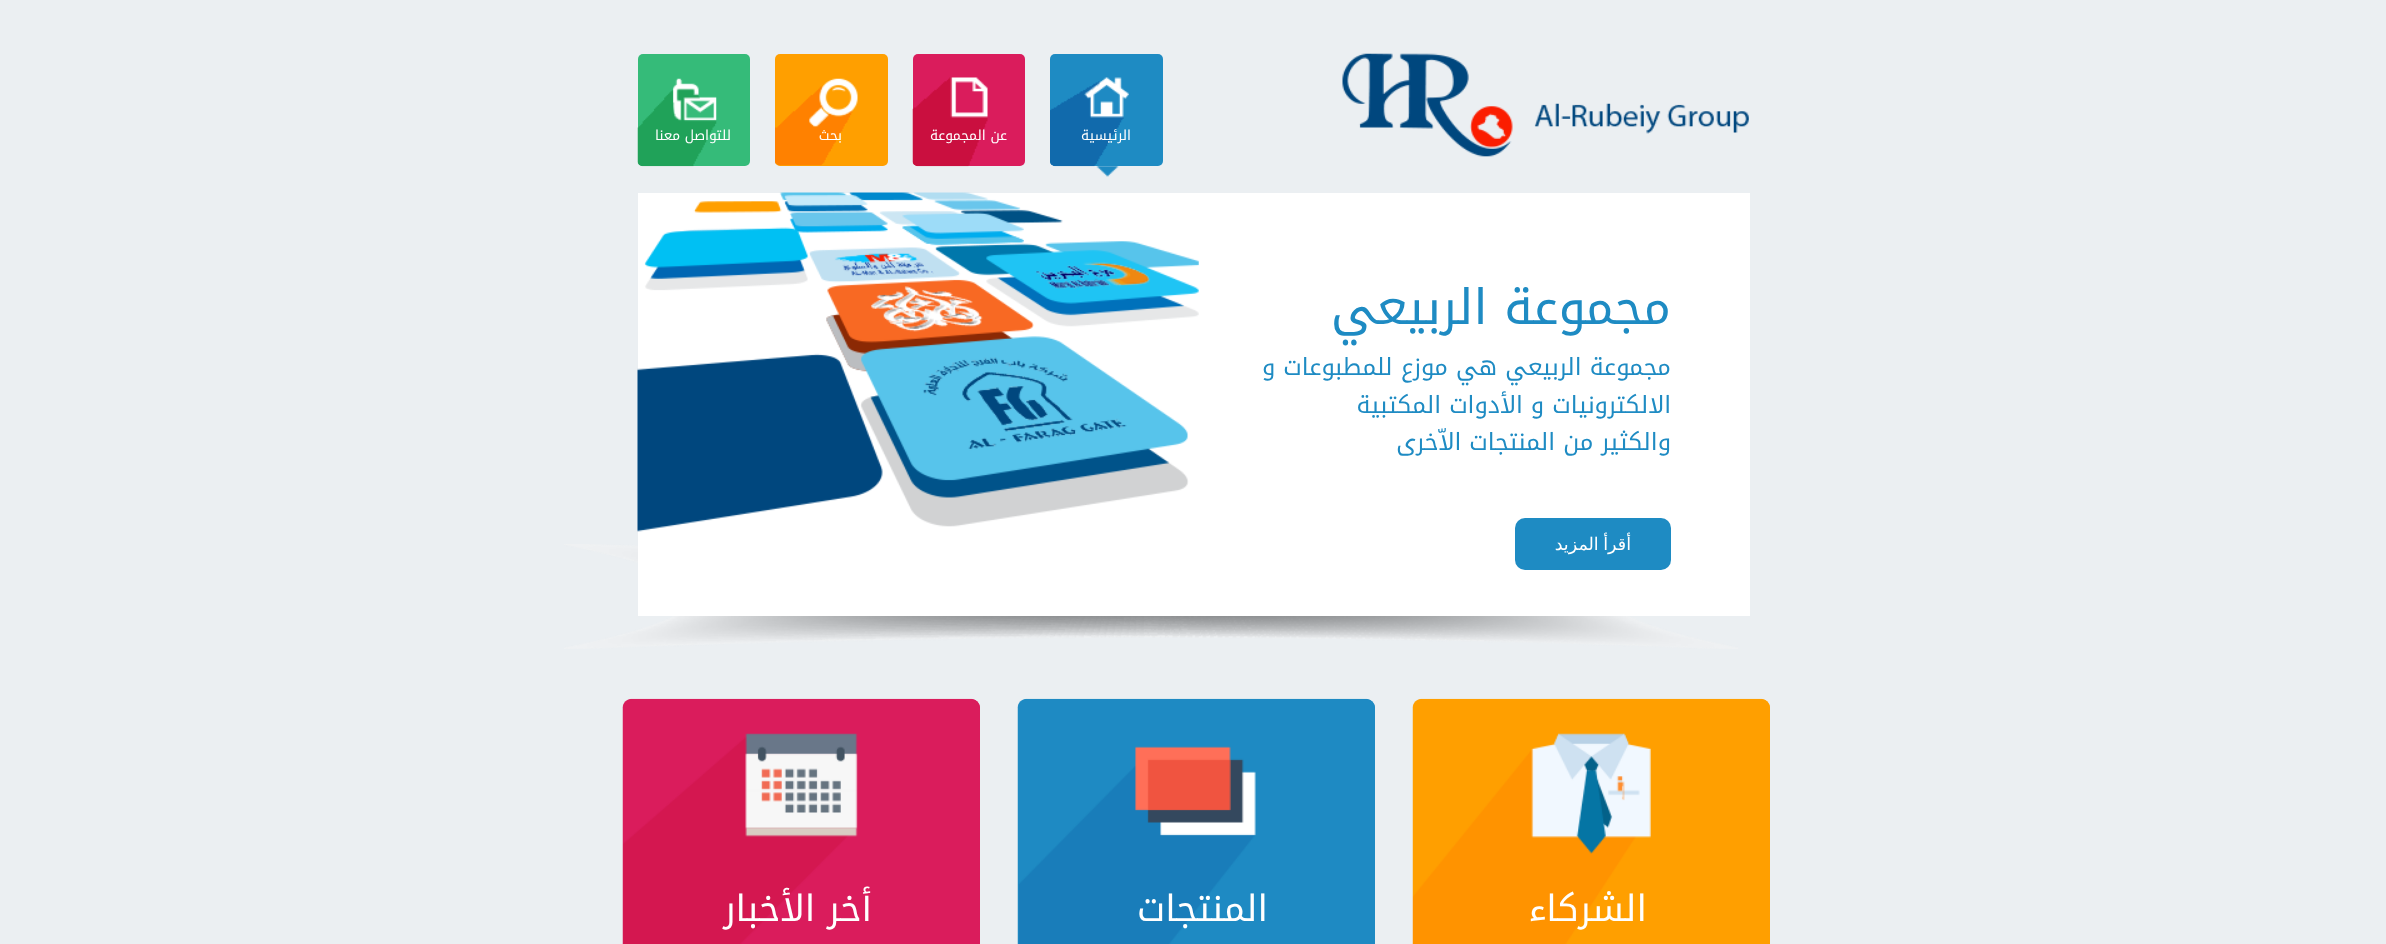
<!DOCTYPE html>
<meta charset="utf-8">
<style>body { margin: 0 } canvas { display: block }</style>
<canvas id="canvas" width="2386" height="944"></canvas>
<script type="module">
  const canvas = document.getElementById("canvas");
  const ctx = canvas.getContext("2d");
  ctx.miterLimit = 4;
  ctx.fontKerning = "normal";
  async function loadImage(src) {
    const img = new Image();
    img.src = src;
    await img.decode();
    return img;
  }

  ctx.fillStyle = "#ebeff2";
  ctx.fillRect(0, 0, 2386, 944);
  ctx.drawImage(await loadImage("img1.png"), 1342, 53, 407, 104);
  ctx.fillStyle = "#1e8bc3";
  ctx.beginPath();
  ctx.roundRect(1050, 54, 113, 112, 5);
  ctx.fill();
  ctx.drawImage(await loadImage("img2.png"), 1050, 77, 79, 90);
  ctx.direction = "rtl";
  ctx.font = "13.75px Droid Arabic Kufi";
  ctx.fillStyle = "#ffffff";
  ctx.fillText("الرئيسية", 1131, 140);
  ctx.drawImage(await loadImage("img3.png"), 1096, 166, 23, 11);
  ctx.fillStyle = "#da1c5c";
  ctx.beginPath();
  ctx.roundRect(913, 54, 112, 112, 5);
  ctx.fill();
  ctx.drawImage(await loadImage("img4.png"), 912, 77, 76, 90);
  ctx.fillStyle = "#ffffff";
  ctx.fillText("عن المجموعة", 1007, 140);
  ctx.fillStyle = "#ff9f00";
  ctx.beginPath();
  ctx.roundRect(775, 54, 113, 112, 5);
  ctx.fill();
  ctx.drawImage(await loadImage("img5.png"), 775, 78, 83, 88);
  ctx.fillStyle = "#ffffff";
  ctx.fillText("بحث", 842, 140);
  ctx.fillStyle = "#35bb79";
  ctx.beginPath();
  ctx.roundRect(638, 54, 112, 112, 5);
  ctx.fill();
  ctx.drawImage(await loadImage("img6.png"), 637, 78, 80, 89);
  ctx.fillStyle = "#ffffff";
  ctx.fillText("للتواصل معنا", 731, 140);
  ctx.drawImage(await loadImage("img8.png"), 564, 544, 1174, 105);
  ctx.fillRect(638, 193, 1112, 423);
  ctx.font = "48.75px Droid Arabic Kufi";
  ctx.fillStyle = "#1e8bc3";
  ctx.fillText("مجموعة الربيعي", 1671, 324);
  ctx.font = "23.75px Droid Arabic Kufi";
  ctx.fillText("مجموعة الربيعي هي موزع للمطبوعات و", 1671, 375);
  ctx.fillText("الالكترونيات و الأدوات المكتبية", 1671, 413);
  ctx.fillText("والكثير من المنتجات الاّخرى", 1671, 450);
  ctx.beginPath();
  ctx.roundRect(1515, 518, 156, 52, 10);
  ctx.fill();
  ctx.wordSpacing = "-1px";
  ctx.font = "17.5px DejaVu Sans";
  ctx.fillStyle = "#ffffff";
  ctx.fillText("أقرأ المزيد", 1631, 550);
  ctx.drawImage(await loadImage("img7.png"), 637, 192, 562, 340);
  ctx.fillStyle = "#ff9f00";
  ctx.beginPath();
  ctx.roundRect(1413, 699, 357, 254, 9);
  ctx.fill();
  ctx.drawImage(await loadImage("img9.png"), 1412, 698, 358, 246);
  ctx.wordSpacing = "0px";
  ctx.font = "36.25px Droid Arabic Kufi";
  ctx.fillStyle = "#ffffff";
  ctx.fillText("الشركاء", 1647, 921);
  ctx.fillStyle = "#1e8bc3";
  ctx.beginPath();
  ctx.roundRect(1018, 699, 357, 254, 9);
  ctx.fill();
  ctx.drawImage(await loadImage("img10.png"), 1017, 698, 358, 246);
  ctx.fillStyle = "#ffffff";
  ctx.fillText("المنتجات", 1268, 921);
  ctx.fillStyle = "#da1c5c";
  ctx.beginPath();
  ctx.roundRect(623, 699, 357, 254, 9);
  ctx.fill();
  ctx.drawImage(await loadImage("img11.png"), 622, 698, 358, 246);
  ctx.fillStyle = "#ffffff";
  ctx.fillText("أخر الأخبار", 872, 921);
</script>
